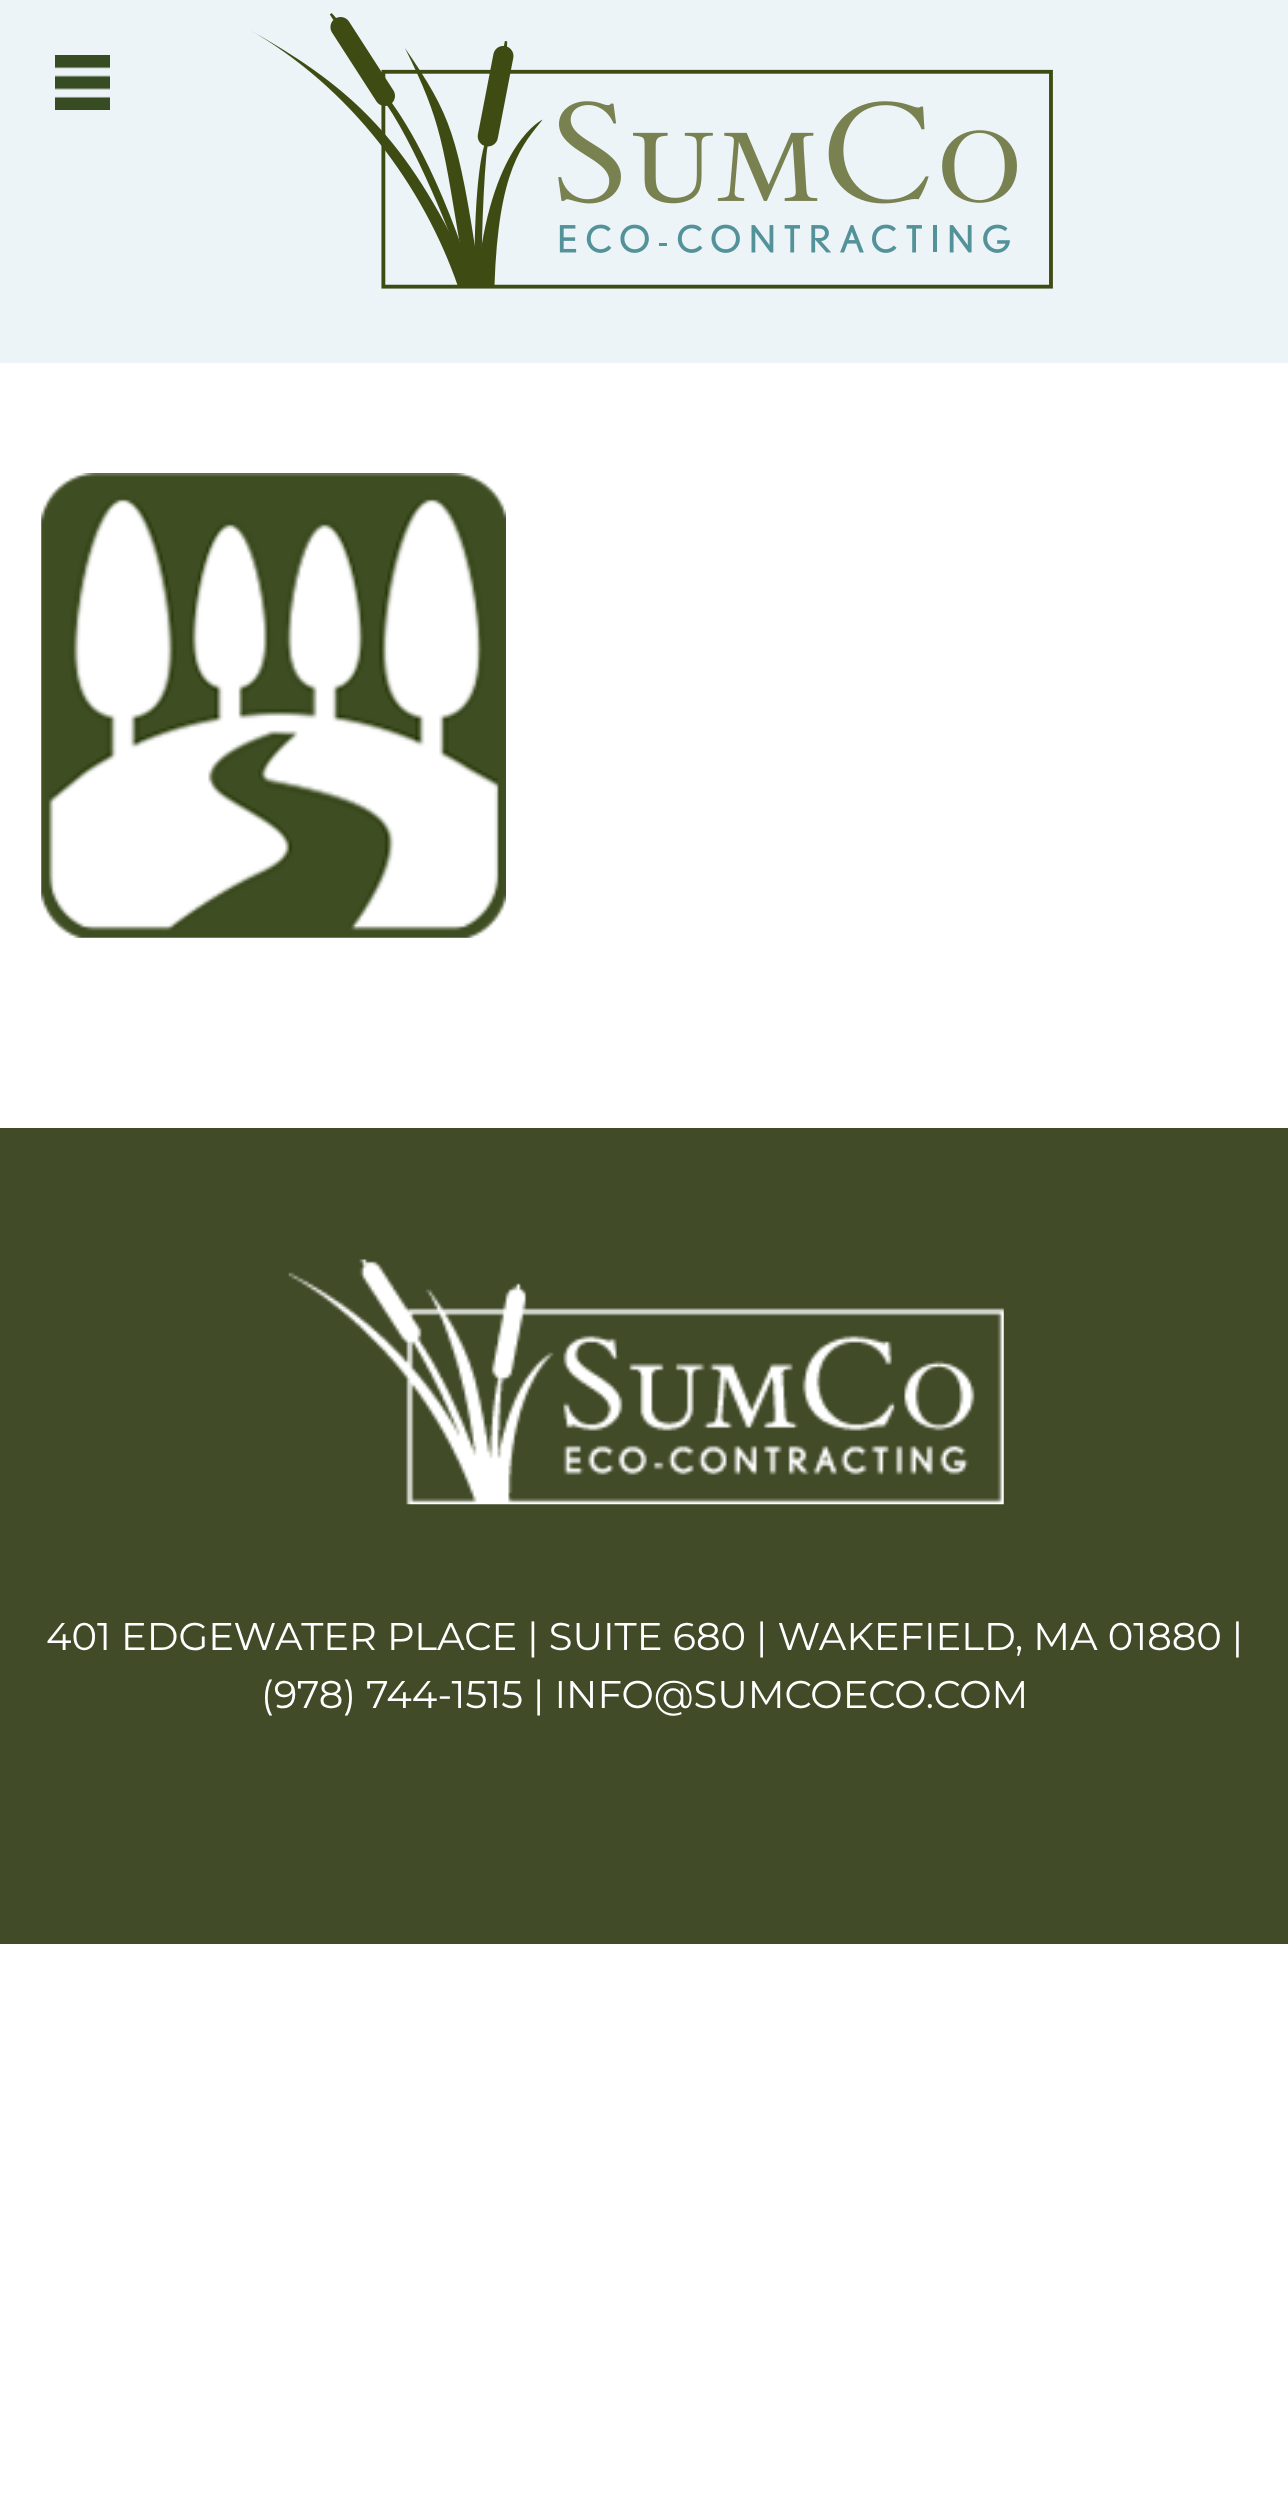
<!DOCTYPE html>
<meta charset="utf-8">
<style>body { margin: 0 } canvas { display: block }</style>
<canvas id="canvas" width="1288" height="2512"></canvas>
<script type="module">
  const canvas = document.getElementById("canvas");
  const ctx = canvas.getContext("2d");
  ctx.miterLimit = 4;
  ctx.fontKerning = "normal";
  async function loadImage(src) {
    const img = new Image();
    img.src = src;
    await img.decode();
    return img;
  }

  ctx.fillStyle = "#ffffff";
  ctx.fillRect(0, 0, 1288, 2512);
  ctx.fillStyle = "#ecf4f8";
  ctx.fillRect(0, 0, 1288, 363);
  ctx.drawImage(await loadImage("img1.png"), 55, 55, 55, 55);
  ctx.drawImage(await loadImage("img2.png"), 250, 13, 803, 276);
  ctx.drawImage(await loadImage("img3.png"), 41, 473, 465, 465);
  ctx.fillStyle = "#414b27";
  ctx.fillRect(0, 1128, 1288, 816);
  ctx.drawImage(await loadImage("img4.png"), 288, 1259, 716, 246);
  ctx.font = "38.5px Montserrat";
  ctx.fillStyle = "#ffffff";
  ctx.fillText("401 EDGEWATER PLACE | SUITE 680 | WAKEFIELD, MA 01880 |", 46, 1650);
  ctx.fillText("(978) 744-1515 | INFO@SUMCOECO.COM", 261, 1708);
</script>
